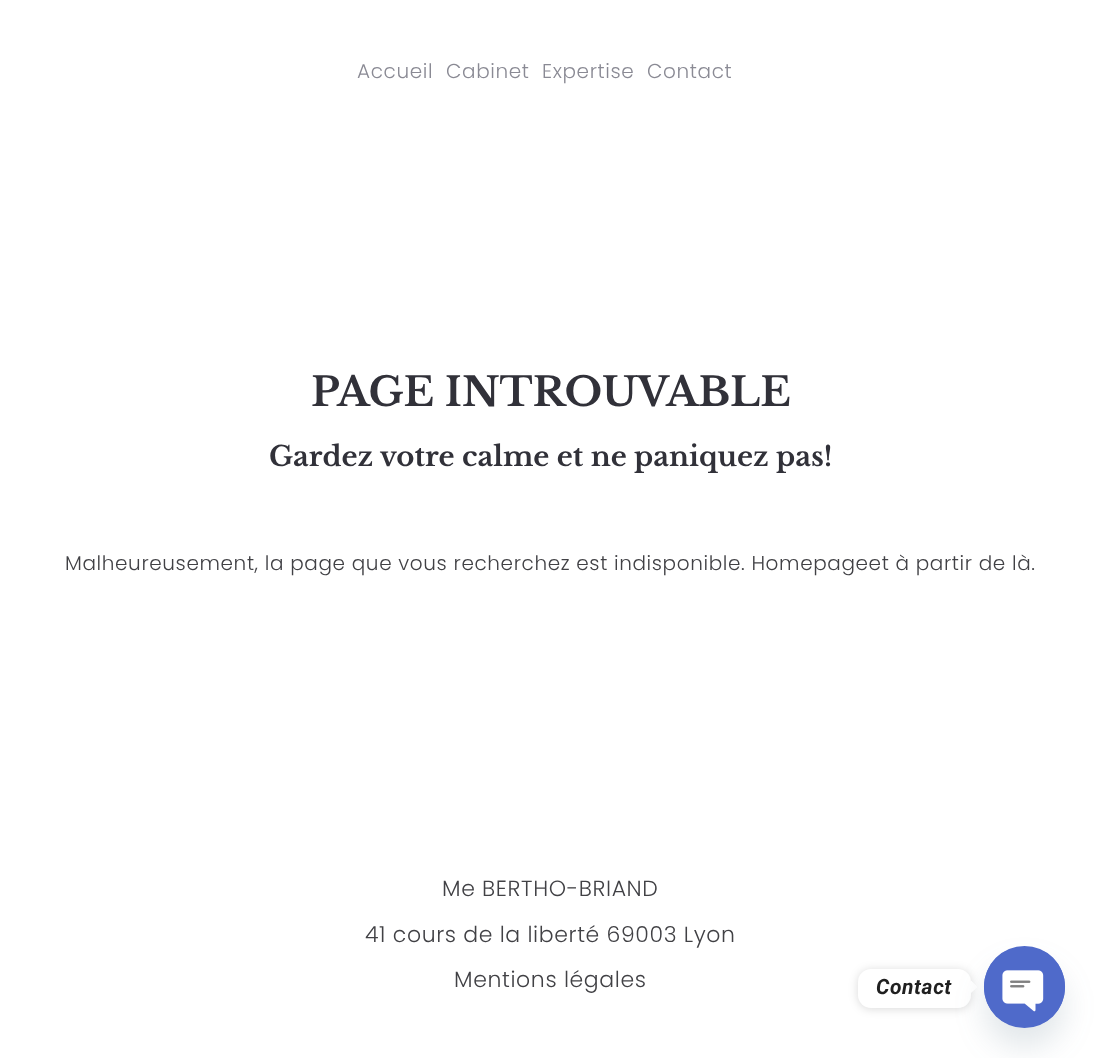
<!DOCTYPE html>
<meta charset="utf-8">
<style>body { margin: 0 } canvas { display: block }</style>
<canvas id="canvas" width="1101" height="1058"></canvas>
<script type="module">
  const canvas = document.getElementById("canvas");
  const ctx = canvas.getContext("2d");
  ctx.miterLimit = 4;
  ctx.fontKerning = "normal";
  async function loadImage(src) {
    const img = new Image();
    img.src = src;
    await img.decode();
    return img;
  }

  ctx.fillStyle = "#ffffff";
  ctx.fillRect(0, 0, 1101, 1058);
  ctx.letterSpacing = "0.62px";
  ctx.font = "300 20px Poppins";
  ctx.fillStyle = "#8a8a94";
  ctx.fillText("Accueil", 357, 78);
  ctx.fillText("Cabinet", 446, 78);
  ctx.fillText("Expertise", 542, 78);
  ctx.fillText("Contact", 647, 78);
  ctx.letterSpacing = "0px";
  ctx.font = "bold 40px Libre Baskerville";
  ctx.fillStyle = "#313139";
  ctx.fillText("PAGE INTROUVABLE", 311, 406);
  ctx.font = "bold 27.5px Libre Baskerville";
  ctx.fillText("Gardez votre calme et ne paniquez pas!", 269, 466);
  ctx.letterSpacing = "0.62px";
  ctx.font = "300 20px Poppins";
  ctx.fillStyle = "#414145";
  ctx.fillText("Malheureusement, la page que vous recherchez est indisponible. Homepageet à partir de là.", 65, 570);
  ctx.font = "300 22px Poppins";
  ctx.fillText("Me BERTHO-BRIAND", 442, 896);
  ctx.fillText("41 cours de la liberté 69003 Lyon", 365, 942);
  ctx.fillText("Mentions légales", 454, 987);
  ctx.fillStyle = "rgba(0, 0, 0, 0.15)";
  ctx.filter = "blur(5px)";
  ctx.beginPath();
  ctx.roundRect(858, 970, 113, 39, 13);
  ctx.fill();
  ctx.filter = "none";
  ctx.fillStyle = "#ffffff";
  ctx.beginPath();
  ctx.roundRect(858, 969, 113, 39, 13);
  ctx.fill();
  ctx.font = "italic bold 21px Roboto";
  ctx.fillStyle = "#202020";
  ctx.fillText("Contact", 876, 994);
  ctx.fillStyle = "#ffffff";
  ctx.beginPath();
  ctx.moveTo(971, 993);
  ctx.lineTo(971, 980.5);
  ctx.lineTo(977.5, 987);
  ctx.closePath();
  ctx.fill();
  ctx.fillStyle = "rgba(73, 104, 126, 0.16)";
  ctx.filter = "blur(15px)";
  ctx.beginPath();
  ctx.roundRect(984, 966, 81, 82, 40.5);
  ctx.fill();
  ctx.filter = "none";
  ctx.fillStyle = "#4f6aca";
  ctx.beginPath();
  ctx.roundRect(984, 946, 81, 82, 40.5);
  ctx.fill();
  ctx.drawImage(await loadImage("img1.png"), 984, 951, 81, 72);
</script>
